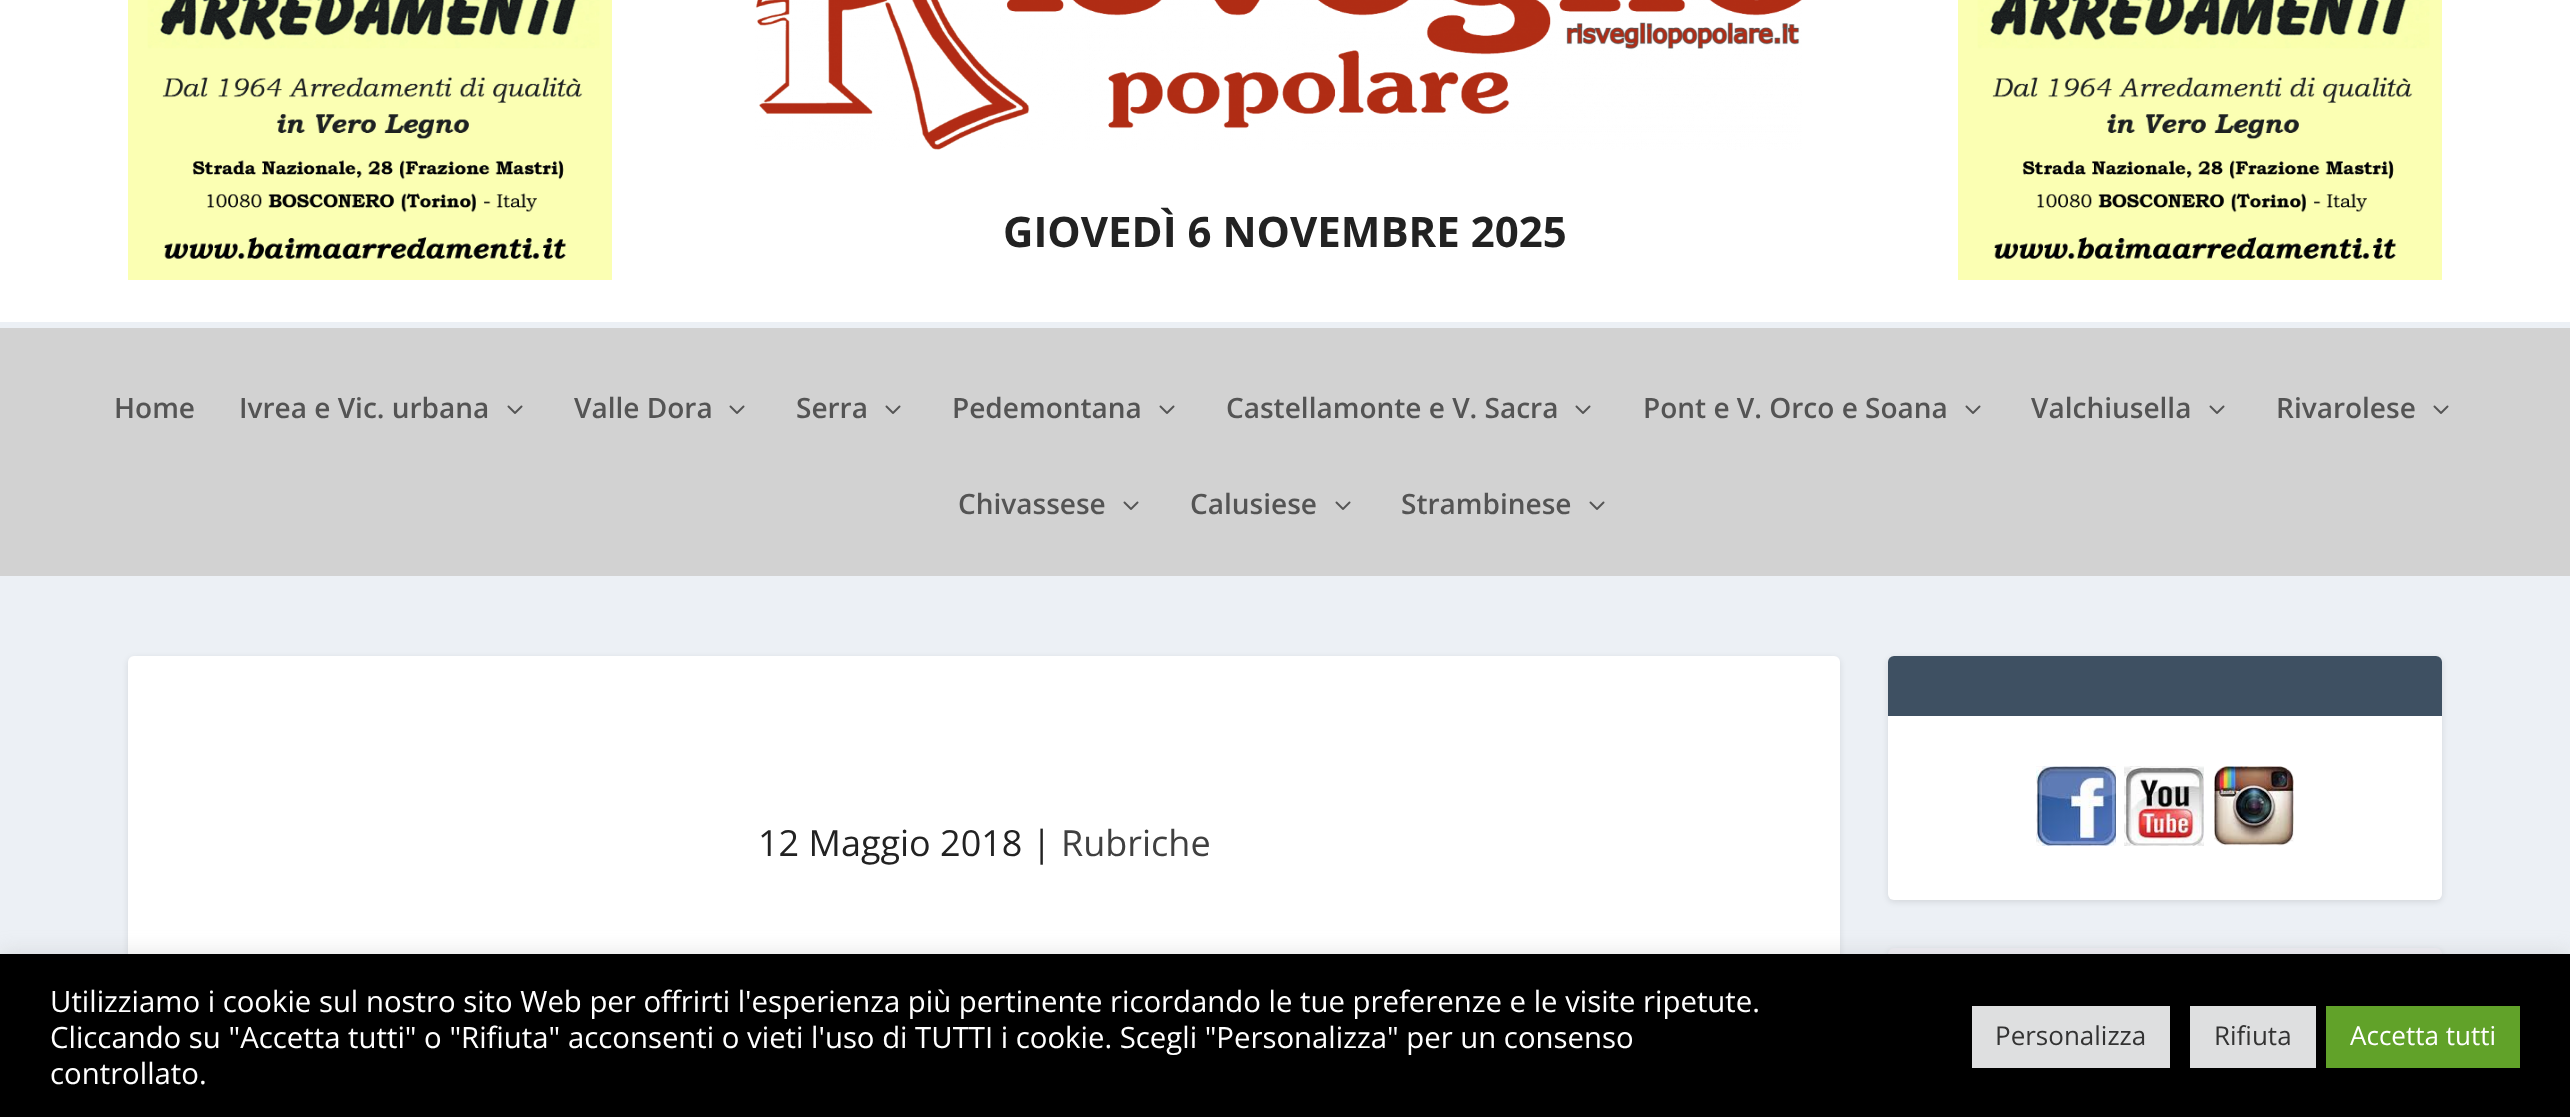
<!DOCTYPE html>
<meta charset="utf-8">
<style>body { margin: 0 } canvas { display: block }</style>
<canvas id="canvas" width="2570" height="1117"></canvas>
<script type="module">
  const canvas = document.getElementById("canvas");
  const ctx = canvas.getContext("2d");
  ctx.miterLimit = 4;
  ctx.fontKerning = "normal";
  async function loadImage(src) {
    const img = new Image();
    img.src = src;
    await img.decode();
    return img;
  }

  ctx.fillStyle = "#ecf0f5";
  ctx.fillRect(0, 0, 2570, 1117);
  ctx.fillStyle = "#ffffff";
  ctx.fillRect(0, 0, 2570, 322);
  ctx.drawImage(await loadImage("img1.png"), 128, 0, 484, 280);
  ctx.drawImage(await loadImage("img2.png"), 755, 0, 1047, 150);
  ctx.font = "bold 42px Open Sans";
  ctx.fillStyle = "#222222";
  ctx.fillText("GIOVEDÌ 6 NOVEMBRE 2025", 1003, 247);
  ctx.drawImage(await loadImage("img1.png"), 1958, 0, 484, 280);
  ctx.fillStyle = "#d2d2d2";
  ctx.fillRect(0, 328, 2570, 248);
  ctx.font = "600 28px Open Sans";
  ctx.fillStyle = "#545454";
  ctx.fillText("Home", 114, 418);
  ctx.fillText("Ivrea e Vic. urbana", 239, 418);
  ctx.drawImage(await loadImage("img3.png"), 507, 405, 16, 9);
  ctx.fillText("Valle Dora", 574, 418);
  ctx.drawImage(await loadImage("img3.png"), 729, 405, 16, 9);
  ctx.fillText("Serra", 796, 418);
  ctx.drawImage(await loadImage("img3.png"), 885, 405, 16, 9);
  ctx.fillText("Pedemontana", 952, 418);
  ctx.drawImage(await loadImage("img3.png"), 1159, 405, 16, 9);
  ctx.fillText("Castellamonte e V. Sacra", 1226, 418);
  ctx.drawImage(await loadImage("img3.png"), 1575, 405, 16, 9);
  ctx.fillText("Pont e V. Orco e Soana", 1643, 418);
  ctx.drawImage(await loadImage("img3.png"), 1965, 405, 16, 9);
  ctx.fillText("Valchiusella", 2031, 418);
  ctx.drawImage(await loadImage("img3.png"), 2209, 405, 16, 9);
  ctx.fillText("Rivarolese", 2276, 418);
  ctx.drawImage(await loadImage("img3.png"), 2433, 405, 16, 9);
  ctx.fillText("Chivassese", 958, 514);
  ctx.drawImage(await loadImage("img3.png"), 1123, 501, 16, 9);
  ctx.fillText("Calusiese", 1190, 514);
  ctx.drawImage(await loadImage("img3.png"), 1335, 501, 16, 9);
  ctx.fillText("Strambinese", 1401, 514);
  ctx.drawImage(await loadImage("img3.png"), 1589, 501, 16, 9);
  ctx.fillStyle = "rgba(0, 0, 0, 0.1)";
  ctx.filter = "blur(3px)";
  ctx.beginPath();
  ctx.roundRect(128, 658, 1712, 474, 6);
  ctx.fill();
  ctx.filter = "none";
  ctx.fillStyle = "#ffffff";
  ctx.beginPath();
  ctx.roundRect(128, 656, 1712, 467, 6);
  ctx.fill();
  ctx.font = "36px Open Sans";
  ctx.fillStyle = "#222222";
  ctx.fillText("12 Maggio 2018 |", 758, 856);
  ctx.fillStyle = "#404040";
  ctx.fillText("Rubriche", 1061, 856);
  ctx.fillStyle = "rgba(0, 0, 0, 0.1)";
  ctx.filter = "blur(3px)";
  ctx.beginPath();
  ctx.roundRect(1888, 658, 554, 244, 6);
  ctx.fill();
  ctx.filter = "none";
  ctx.fillStyle = "#ffffff";
  ctx.beginPath();
  ctx.roundRect(1888, 656, 554, 244, 6);
  ctx.fill();
  ctx.fillStyle = "#3e5062";
  ctx.beginPath();
  ctx.roundRect(1888, 656, 554, 60, [6, 6, 0, 0]);
  ctx.fill();
  ctx.drawImage(await loadImage("img4.png"), 2036, 766, 80, 80);
  ctx.drawImage(await loadImage("img5.png"), 2124, 766, 80, 80);
  ctx.drawImage(await loadImage("img6.png"), 2214, 766, 80, 80);
  ctx.fillStyle = "rgba(0, 0, 0, 0.1)";
  ctx.filter = "blur(3px)";
  ctx.beginPath();
  ctx.roundRect(1888, 950, 554, 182, 6);
  ctx.fill();
  ctx.filter = "none";
  ctx.drawImage(await loadImage("img7.png"), 1888, 948, 554, 6);
  ctx.fillStyle = "rgba(172, 171, 171, 0.3)";
  ctx.filter = "blur(10px)";
  ctx.beginPath();
  ctx.rect(0, 952, 2570, 164);
  ctx.fill();
  ctx.filter = "none";
  ctx.fillStyle = "#000000";
  ctx.fillRect(0, 954, 2570, 163);
  ctx.font = "29.33px Open Sans";
  ctx.fillStyle = "#ffffff";
  ctx.fillText("Utilizziamo i cookie sul nostro sito Web per offrirti l'esperienza più pertinente ricordando le tue preferenze e le visite ripetute.", 50, 1012);
  ctx.fillText("Cliccando su \"Accetta tutti\" o \"Rifiuta\" acconsenti o vieti l'uso di TUTTI i cookie. Scegli \"Personalizza\" per un consenso", 50, 1048);
  ctx.fillText("controllato.", 50, 1084);
  ctx.fillStyle = "#dedfe0";
  ctx.fillRect(1972, 1006, 198, 62);
  ctx.font = "26px Open Sans";
  ctx.fillStyle = "#333333";
  ctx.fillText("Personalizza", 1995, 1045);
  ctx.fillStyle = "#dedfe0";
  ctx.fillRect(2190, 1006, 126, 62);
  ctx.fillStyle = "#333333";
  ctx.fillText("Rifiuta", 2214, 1045);
  ctx.fillStyle = "#61a229";
  ctx.fillRect(2326, 1006, 194, 62);
  ctx.fillStyle = "#ffffff";
  ctx.fillText("Accetta tutti", 2350, 1045);
</script>
